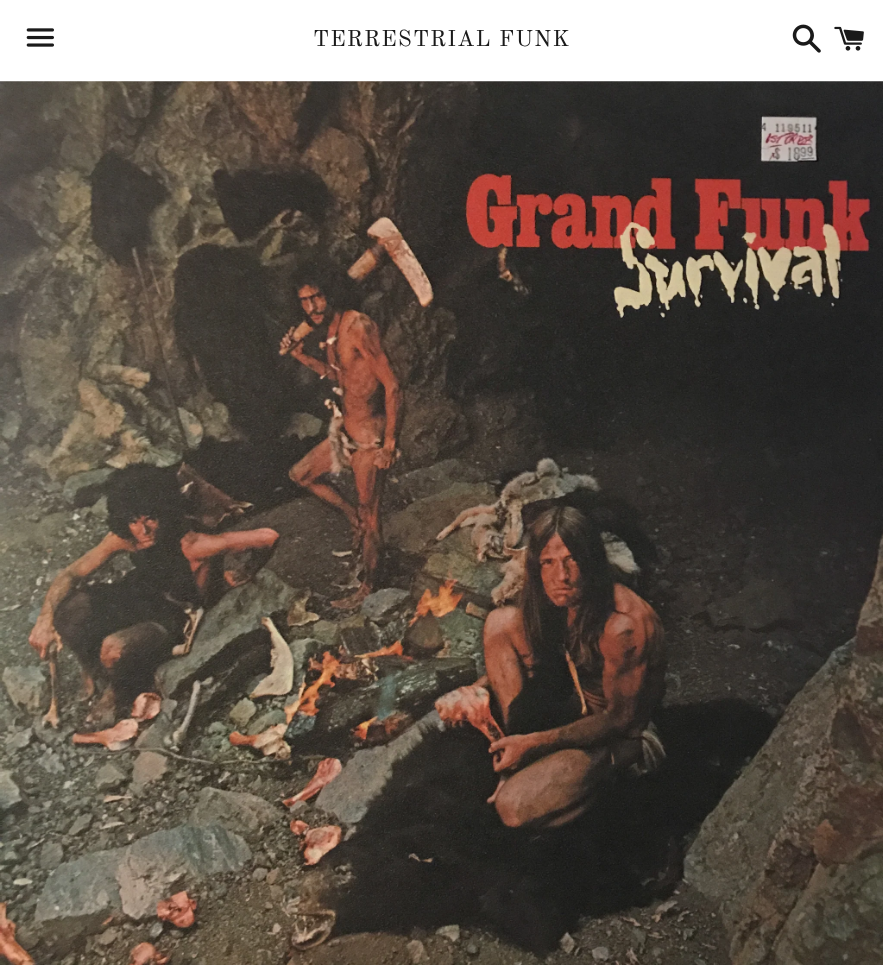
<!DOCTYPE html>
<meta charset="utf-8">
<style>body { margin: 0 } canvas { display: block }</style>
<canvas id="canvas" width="883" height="973"></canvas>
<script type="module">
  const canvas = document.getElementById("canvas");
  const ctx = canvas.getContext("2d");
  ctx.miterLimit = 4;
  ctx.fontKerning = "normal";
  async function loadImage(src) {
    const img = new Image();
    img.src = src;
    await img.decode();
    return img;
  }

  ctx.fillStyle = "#ffffff";
  ctx.fillRect(0, 0, 883, 973);
  ctx.drawImage(await loadImage("img1.png"), 26, 28, 28, 19);
  ctx.letterSpacing = "1.1px";
  ctx.font = "22.5px Old Standard TT";
  ctx.fillStyle = "#1a1a1a";
  ctx.fillText("TERRESTRIAL FUNK", 313, 46);
  ctx.drawImage(await loadImage("img2.png"), 792, 24, 29, 29);
  ctx.drawImage(await loadImage("img3.png"), 834, 26, 30, 25);
  ctx.drawImage(await loadImage("img4.png"), 0, 81, 883, 884);
</script>
